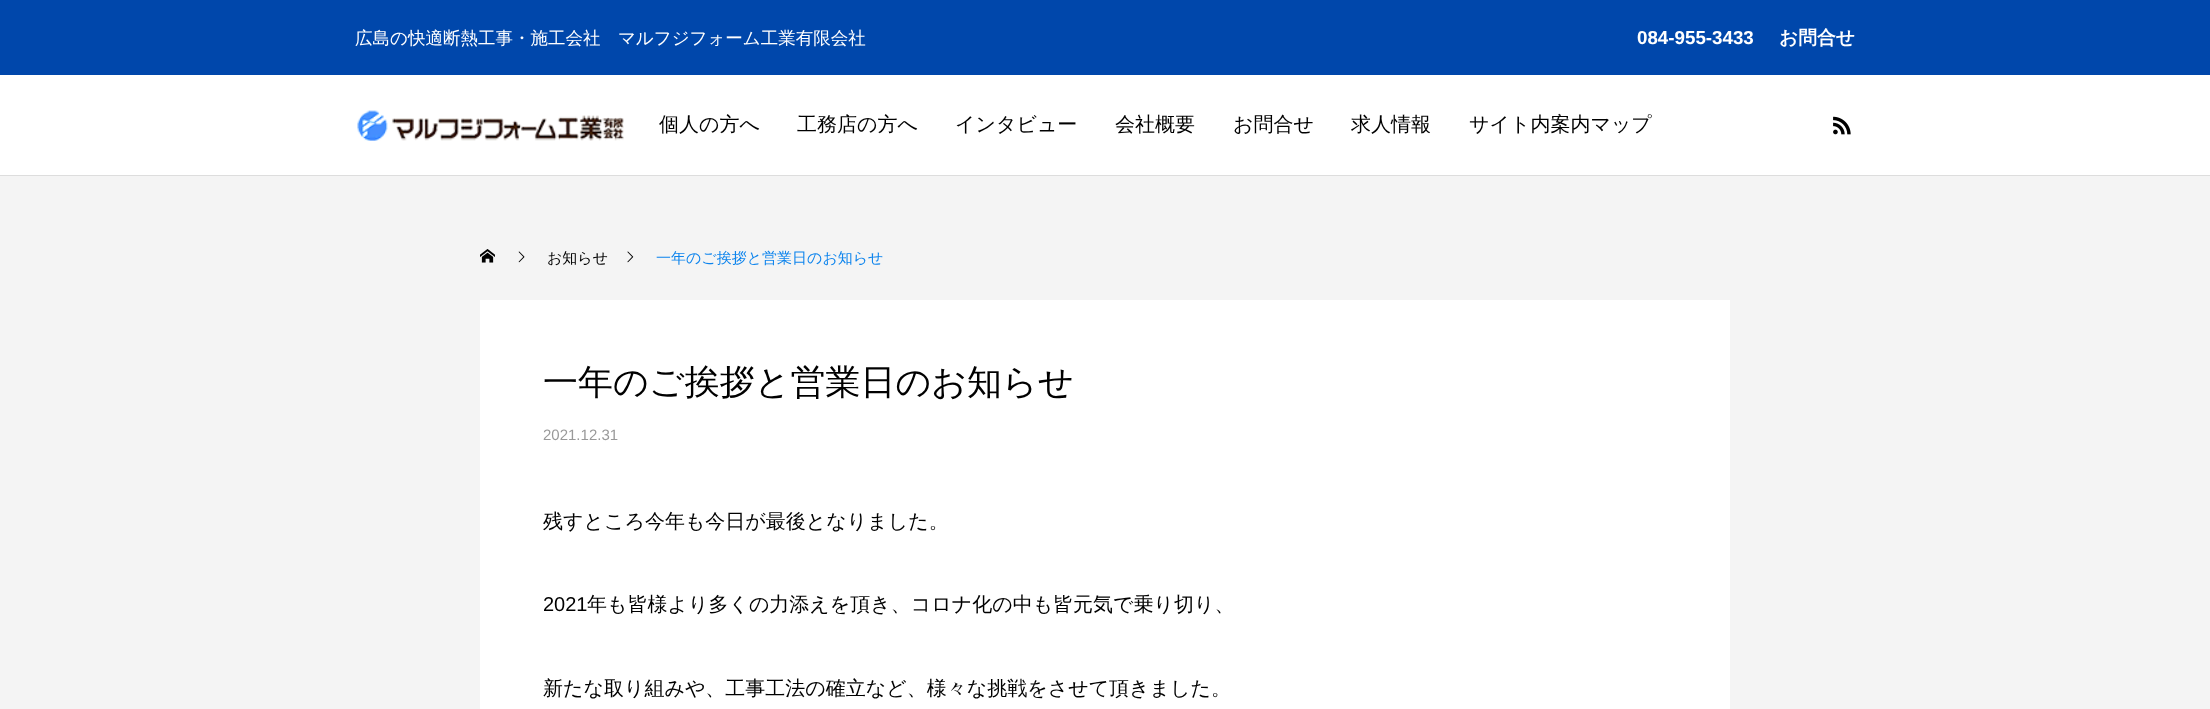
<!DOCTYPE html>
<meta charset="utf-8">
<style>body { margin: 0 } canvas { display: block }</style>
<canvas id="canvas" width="2210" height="709"></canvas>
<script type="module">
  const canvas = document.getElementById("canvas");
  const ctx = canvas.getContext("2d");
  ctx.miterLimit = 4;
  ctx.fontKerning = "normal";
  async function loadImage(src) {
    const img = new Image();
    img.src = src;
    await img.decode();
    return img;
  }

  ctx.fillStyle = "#ffffff";
  ctx.fillRect(0, 0, 2210, 709);
  ctx.fillStyle = "#0047ab";
  ctx.fillRect(0, 0, 2210, 75);
  ctx.font = "500 17.5px WenQuanYi Zen Hei";
  ctx.fillStyle = "#ffffff";
  ctx.fillText("広島の快適断熱工事・施工会社　マルフジフォーム工業有限会社", 355, 44);
  ctx.font = "bold 18.75px Liberation Sans";
  ctx.fillText("084-955-3433", 1637, 44);
  ctx.font = "bold 18.75px WenQuanYi Zen Hei";
  ctx.fillText("お問合せ", 1779, 44);
  ctx.drawImage(await loadImage("img1.png"), 357, 110, 267, 31);
  ctx.font = "500 20px WenQuanYi Zen Hei";
  ctx.fillStyle = "#000000";
  ctx.fillText("個人の方へ", 659, 131);
  ctx.fillText("工務店の方へ", 797, 131);
  ctx.fillText("インタビュー", 955, 131);
  ctx.fillText("会社概要", 1115, 131);
  ctx.fillText("お問合せ", 1233, 131);
  ctx.fillText("求人情報", 1351, 131);
  ctx.fillText("サイト内案内マップ", 1469, 131);
  ctx.drawImage(await loadImage("img2.png"), 1833, 116, 18, 19);
  ctx.fillStyle = "#f4f4f4";
  ctx.fillRect(0, 176, 2210, 533);
  ctx.fillStyle = "#dddddd";
  ctx.fillRect(0, 175, 2210, 1);
  ctx.drawImage(await loadImage("img3.png"), 480, 249, 15, 14);
  ctx.drawImage(await loadImage("img4.png"), 518, 251, 7, 12);
  ctx.font = "500 15px WenQuanYi Zen Hei";
  ctx.fillStyle = "#000000";
  ctx.fillText("お知らせ", 547, 263);
  ctx.drawImage(await loadImage("img5.png"), 627, 251, 7, 12);
  ctx.fillStyle = "#0d84ed";
  ctx.fillText("一年のご挨拶と営業日のお知らせ", 656, 263);
  ctx.fillStyle = "#ffffff";
  ctx.fillRect(480, 300, 1250, 409);
  ctx.font = "500 35px WenQuanYi Zen Hei";
  ctx.fillStyle = "#000000";
  ctx.fillText("一年のご挨拶と営業日のお知らせ", 543, 394);
  ctx.font = "15px Liberation Sans";
  ctx.fillStyle = "#999999";
  ctx.fillText("2021.12.31", 543, 440);
  ctx.font = "500 20px WenQuanYi Zen Hei";
  ctx.fillStyle = "#000000";
  ctx.fillText("残すところ今年も今日が最後となりました。", 543, 528);
  ctx.font = "20px Liberation Sans";
  ctx.fillText("2021", 543, 611);
  ctx.font = "500 20px WenQuanYi Zen Hei";
  ctx.fillText("年も皆様より多くの力添えを頂き、コロナ化の中も皆元気で乗り切り、", 587, 611);
  ctx.fillText("新たな取り組みや、工事工法の確立など、様々な挑戦をさせて頂きました。", 543, 695);
</script>
